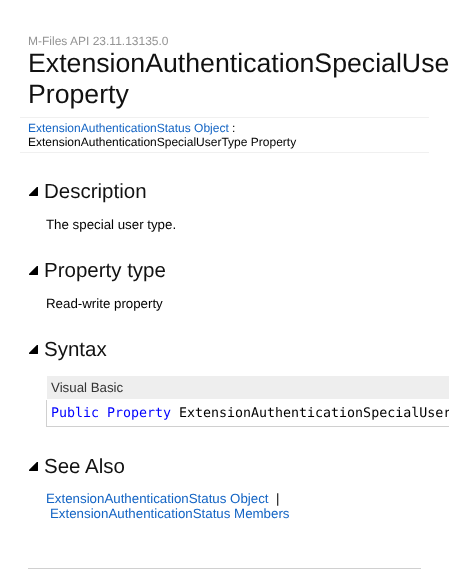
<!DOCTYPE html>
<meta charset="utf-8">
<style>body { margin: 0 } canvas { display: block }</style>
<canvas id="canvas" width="449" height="583"></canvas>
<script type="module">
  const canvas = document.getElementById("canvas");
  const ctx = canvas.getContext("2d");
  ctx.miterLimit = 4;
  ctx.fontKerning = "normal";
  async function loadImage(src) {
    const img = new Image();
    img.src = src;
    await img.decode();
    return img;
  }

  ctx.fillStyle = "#ffffff";
  ctx.fillRect(0, 0, 449, 583);
  ctx.font = "12px Liberation Sans";
  ctx.fillStyle = "#949494";
  ctx.fillText("M-Files API 23.11.13135.0", 28, 45);
  ctx.font = "26.7px Liberation Sans";
  ctx.fillStyle = "#111111";
  ctx.fillText("ExtensionAuthenticationSpecialUse", 28, 72);
  ctx.fillText("Property", 28, 103);
  ctx.fillStyle = "#f0f0f0";
  ctx.fillRect(20, 117, 409, 1);
  ctx.fillRect(20, 152, 409, 1);
  ctx.font = "12px Liberation Sans";
  ctx.fillStyle = "#1364c4";
  ctx.fillText("ExtensionAuthenticationStatus Object", 28, 132);
  ctx.fillStyle = "#000000";
  ctx.fillText(":", 232, 132);
  ctx.fillText("ExtensionAuthenticationSpecialUserType Property", 28, 146);
  ctx.drawImage(await loadImage("img1.png"), 29, 187, 9, 9);
  ctx.font = "20.5px Liberation Sans";
  ctx.fillStyle = "#111111";
  ctx.fillText("Description", 44, 198);
  ctx.font = "13.3px Liberation Sans";
  ctx.fillStyle = "#000000";
  ctx.fillText("The special user type.", 46, 229);
  ctx.drawImage(await loadImage("img1.png"), 29, 266, 9, 9);
  ctx.font = "20.5px Liberation Sans";
  ctx.fillStyle = "#111111";
  ctx.fillText("Property type", 44, 277);
  ctx.font = "13.3px Liberation Sans";
  ctx.fillStyle = "#000000";
  ctx.fillText("Read-write property", 46, 308);
  ctx.drawImage(await loadImage("img1.png"), 29, 345, 9, 9);
  ctx.font = "20.5px Liberation Sans";
  ctx.fillStyle = "#111111";
  ctx.fillText("Syntax", 44, 356);
  ctx.fillStyle = "#eeeeee";
  ctx.fillRect(47, 376, 402, 23);
  ctx.fillStyle = "#d0d0d0";
  ctx.fillRect(46, 426, 403, 1);
  ctx.fillRect(46, 399, 1, 28);
  ctx.fillStyle = "#ffffff";
  ctx.fillRect(46, 399, 1, 1);
  ctx.font = "13.3px Liberation Sans";
  ctx.fillStyle = "#333333";
  ctx.fillText("Visual Basic", 51, 392);
  ctx.font = "13.3px DejaVu Sans Mono";
  ctx.fillStyle = "#0000ff";
  ctx.fillText("Public Property", 51, 417);
  ctx.fillStyle = "#000000";
  ctx.fillText("ExtensionAuthenticationSpecialUser", 179, 417);
  ctx.drawImage(await loadImage("img1.png"), 29, 462, 9, 9);
  ctx.font = "20.5px Liberation Sans";
  ctx.fillStyle = "#111111";
  ctx.fillText("See Also", 44, 473);
  ctx.font = "13.3px Liberation Sans";
  ctx.fillStyle = "#1364c4";
  ctx.fillText("ExtensionAuthenticationStatus Object", 46, 503);
  ctx.fillStyle = "#000000";
  ctx.fillText("|", 276, 503);
  ctx.fillStyle = "#1364c4";
  ctx.fillText("ExtensionAuthenticationStatus Members", 50, 518);
  ctx.fillStyle = "#d0d0d0";
  ctx.fillRect(28, 568, 393, 1);
</script>
